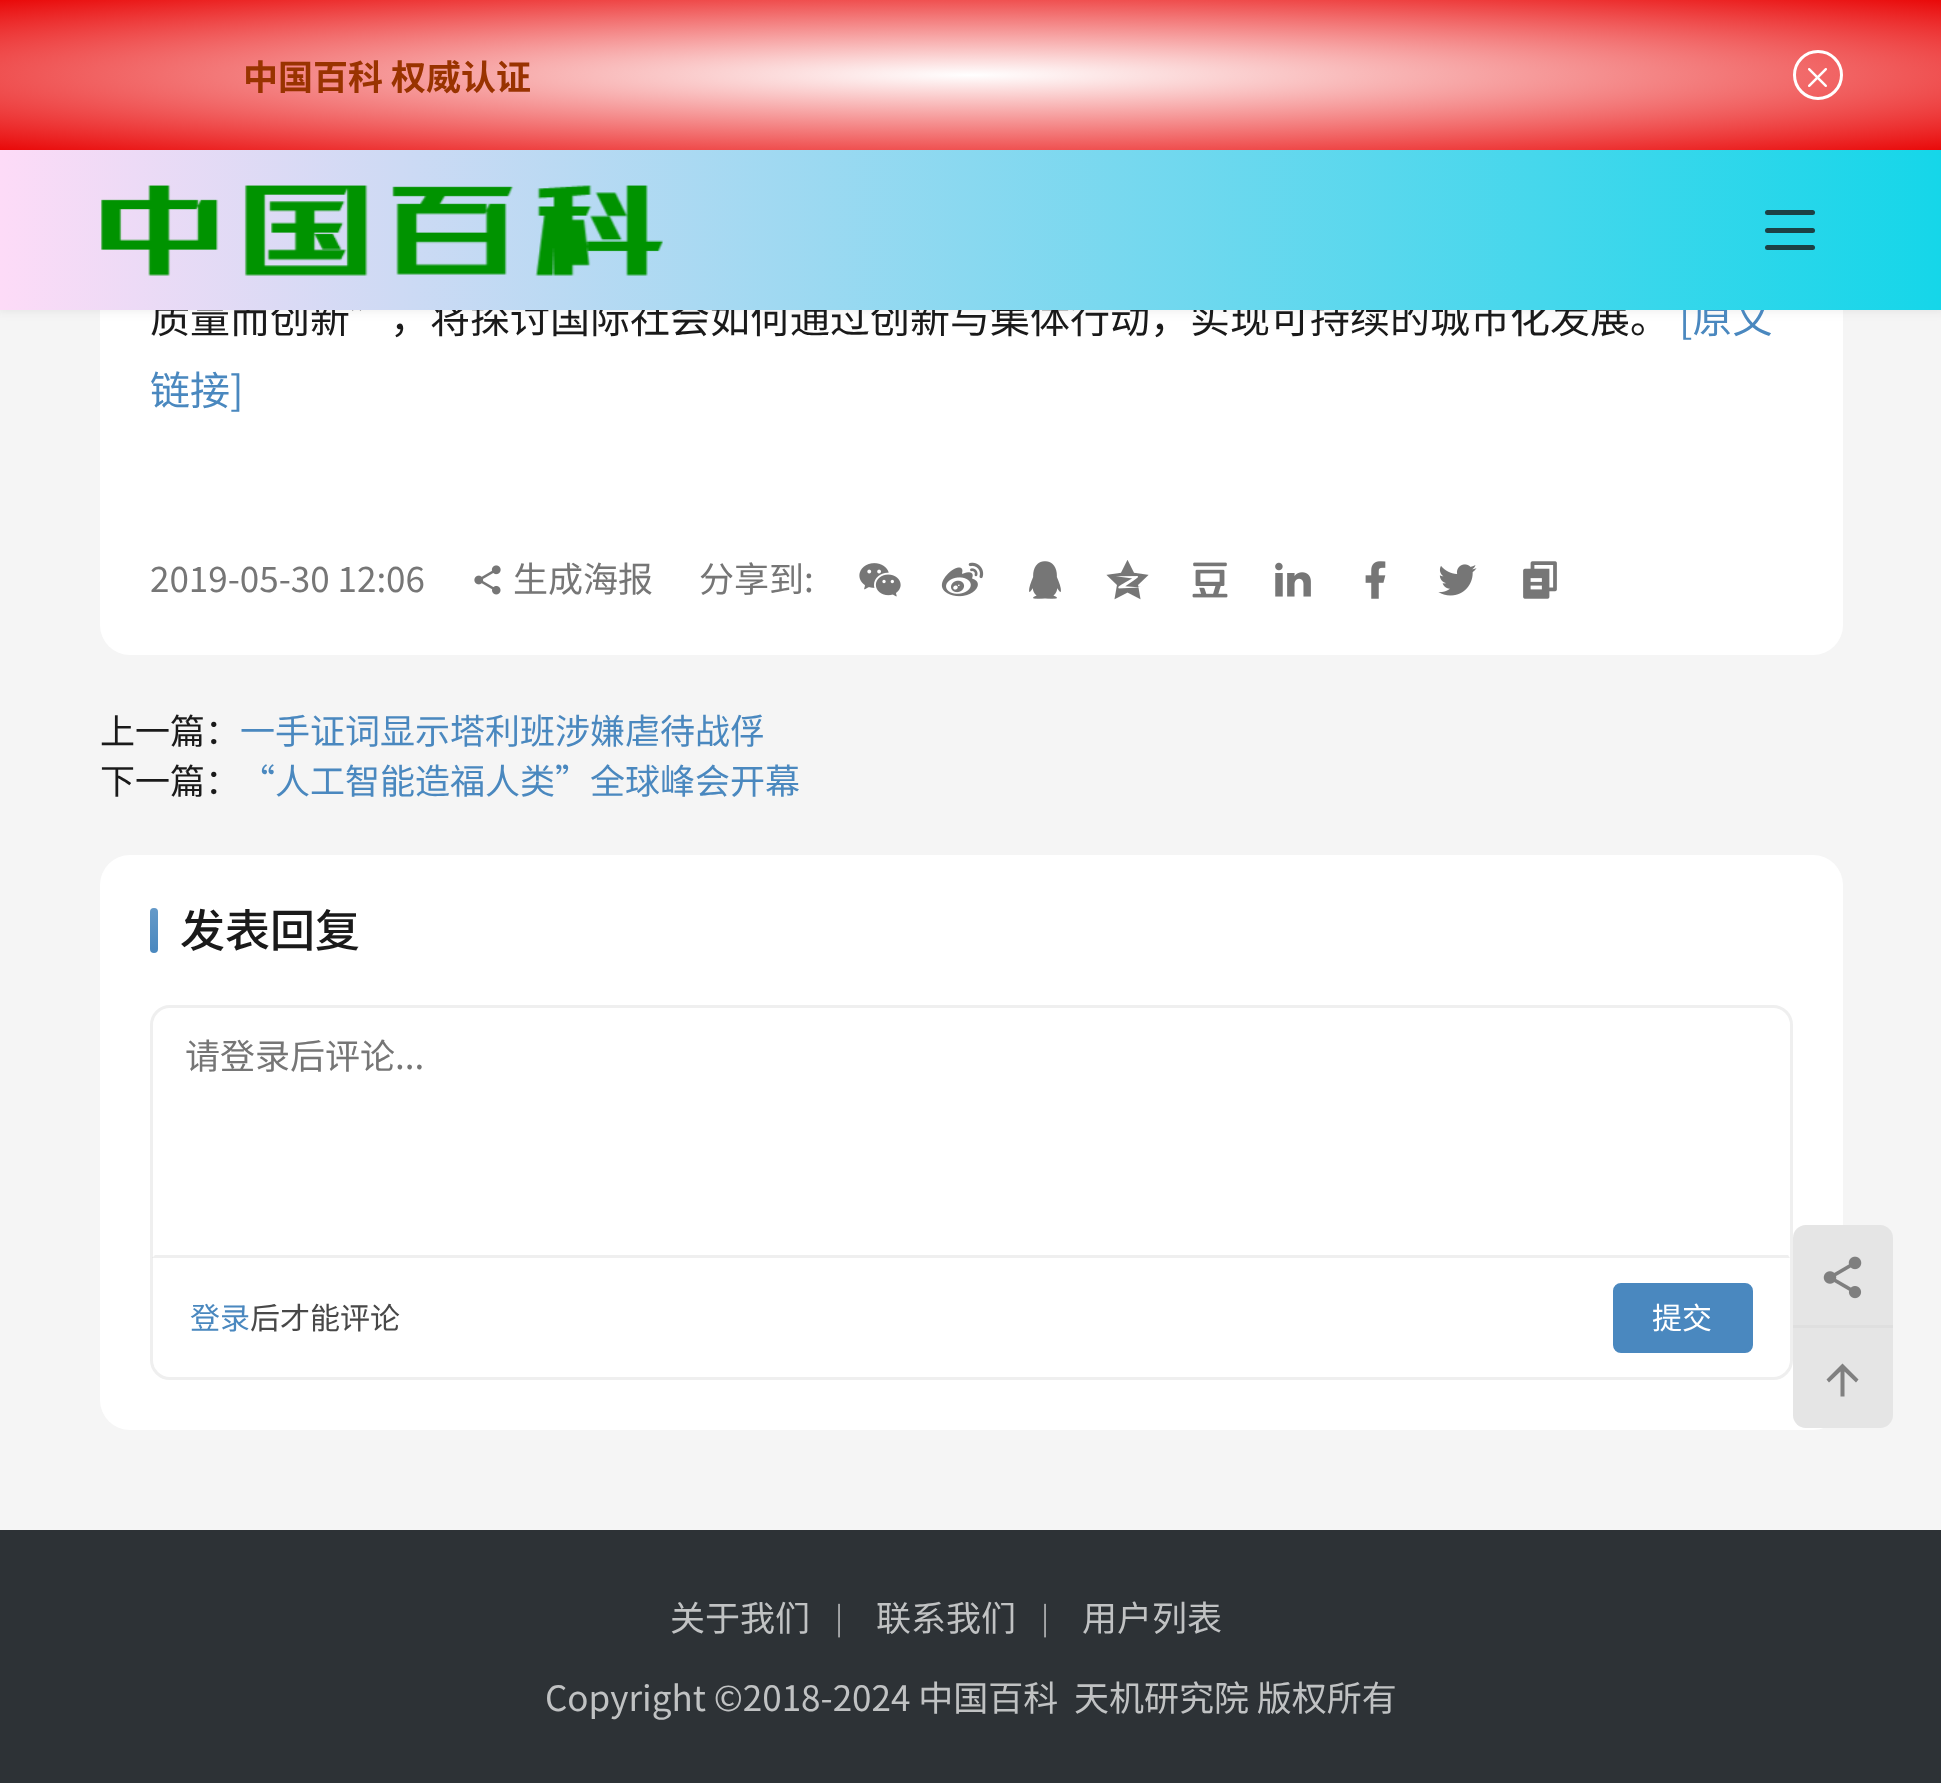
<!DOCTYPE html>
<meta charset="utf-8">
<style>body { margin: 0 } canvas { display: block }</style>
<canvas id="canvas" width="1941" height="1783"></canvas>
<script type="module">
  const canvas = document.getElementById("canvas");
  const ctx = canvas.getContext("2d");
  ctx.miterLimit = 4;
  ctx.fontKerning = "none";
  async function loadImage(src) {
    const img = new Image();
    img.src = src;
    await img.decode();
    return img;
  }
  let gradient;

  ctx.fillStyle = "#f5f5f5";
  ctx.fillRect(0, 0, 1941, 1783);
  ctx.fillStyle = "#ffffff";
  ctx.beginPath();
  ctx.roundRect(100, 25, 1743, 630, 30);
  ctx.fill();
  ctx.fillStyle = "rgba(26, 26, 26, 0.06)";
  ctx.filter = "blur(4px)";
  ctx.beginPath();
  ctx.rect(-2, 148, 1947, 165);
  ctx.fill();
  ctx.filter = "none";
  gradient = ctx.createRadialGradient(971, 972.17, 0, 971, 972.17, 1374);
  gradient.addColorStop(0, "#ffffff");
  gradient.addColorStop(1, "#e90909");
  ctx.fillStyle = gradient;
  ctx.beginPath();
  ctx.rect(0, 0, 1941, 150);
  ctx.save();
  ctx.clip();
  ctx.scale(1, 106 / 1374);
  ctx.fillRect(0, 0, 1941, 23112);
  ctx.restore();
  ctx.font = "bold 35px Noto Sans CJK SC";
  ctx.fillStyle = "#993300";
  ctx.fillText("中国百科 权威认证", 243, 90);
  ctx.beginPath();
  ctx.arc(1818, 75, 23.5, 0, Math.PI * 2);
  ctx.strokeStyle = "#ffffff";
  ctx.lineWidth = 3;
  ctx.stroke();
  ctx.drawImage(await loadImage("img1.png"), 1808, 68, 19, 19);
  ctx.font = "40px Noto Sans CJK SC";
  ctx.fillStyle = "#1a1a1a";
  ctx.fillText("质量而创新”，将探讨国际社会如何通过创新与集体行动，实现可持续的城市化发展。", 150, 333);
  ctx.fillStyle = "#4a88bf";
  ctx.fillText("[原文", 1679, 333);
  gradient = ctx.createLinearGradient(0, 230, 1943, 230);
  gradient.addColorStop(0, "#fddbf7");
  gradient.addColorStop(1, "#15d6e9");
  ctx.fillStyle = gradient;
  ctx.fillRect(0, 150, 1941, 160);
  ctx.drawImage(await loadImage("img2.png"), 101, 185, 562, 91);
  ctx.fillStyle = "rgba(26, 26, 26, 0.8)";
  ctx.beginPath();
  ctx.roundRect(1765, 210, 50, 5, 2.5);
  ctx.fill();
  ctx.beginPath();
  ctx.roundRect(1765, 228, 50, 5, 2.5);
  ctx.fill();
  ctx.beginPath();
  ctx.roundRect(1765, 245, 50, 5, 2.5);
  ctx.fill();
  ctx.fillStyle = "#4a88bf";
  ctx.fillText("链接]", 150, 405);
  ctx.font = "35px Noto Sans CJK SC";
  ctx.fillStyle = "#767676";
  ctx.fillText("2019-05-30 12:06", 150, 592);
  ctx.drawImage(await loadImage("img3.png"), 474, 565, 27, 30);
  ctx.fillText("生成海报", 513, 592);
  ctx.fillText("分享到:", 699, 592);
  ctx.drawImage(await loadImage("img4.png"), 859, 563, 42, 34);
  ctx.drawImage(await loadImage("img5.png"), 941, 562, 43, 35);
  ctx.drawImage(await loadImage("img6.png"), 1029, 561, 32, 38);
  ctx.drawImage(await loadImage("img7.png"), 1106, 560, 43, 40);
  ctx.drawImage(await loadImage("img8.png"), 1192, 562, 36, 36);
  ctx.drawImage(await loadImage("img9.png"), 1275, 562, 36, 35);
  ctx.drawImage(await loadImage("img10.png"), 1365, 561, 21, 38);
  ctx.drawImage(await loadImage("img11.png"), 1438, 564, 39, 32);
  ctx.drawImage(await loadImage("img12.png"), 1523, 561, 34, 38);
  ctx.fillStyle = "#1a1a1a";
  ctx.fillText("上一篇：", 100, 744);
  ctx.fillStyle = "#4a88bf";
  ctx.fillText("一手证词显示塔利班涉嫌虐待战俘", 240, 744);
  ctx.fillStyle = "#1a1a1a";
  ctx.fillText("下一篇：", 100, 794);
  ctx.fillStyle = "#4a88bf";
  ctx.fillText("“人工智能造福人类”全球峰会开幕", 240, 794);
  ctx.fillStyle = "#ffffff";
  ctx.beginPath();
  ctx.roundRect(100, 855, 1743, 575, 30);
  ctx.fill();
  ctx.fillStyle = "#4a88bf";
  ctx.beginPath();
  ctx.roundRect(150, 908, 8, 45, 4);
  ctx.fill();
  gradient = ctx.createLinearGradient(154, 908, 154, 953);
  gradient.addColorStop(0, "rgba(255, 255, 255, 0.15)");
  gradient.addColorStop(1, "rgba(255, 255, 255, 0)");
  ctx.fillStyle = gradient;
  ctx.beginPath();
  ctx.roundRect(150, 908, 8, 45, 4);
  ctx.fill();
  ctx.font = "500 45px Noto Sans CJK SC";
  ctx.fillStyle = "#1a1a1a";
  ctx.fillText("发表回复", 180, 947);
  ctx.beginPath();
  ctx.roundRect(151.5, 1006.5, 1640, 372, 18.5);
  ctx.strokeStyle = "#efefef";
  ctx.stroke();
  ctx.fillStyle = "rgba(26, 26, 26, 0.07)";
  ctx.beginPath();
  ctx.moveTo(1790, 1258);
  ctx.lineTo(152, 1258);
  ctx.lineTo(155, 1255);
  ctx.lineTo(1788, 1255);
  ctx.closePath();
  ctx.fill();
  ctx.font = "35px Noto Sans CJK SC";
  ctx.fillStyle = "#767676";
  ctx.fillText("请登录后评论...", 185, 1069);
  ctx.font = "30px Noto Sans CJK SC";
  ctx.fillStyle = "#4a88bf";
  ctx.fillText("登录", 190, 1329);
  ctx.fillStyle = "#484848";
  ctx.fillText("后才能评论", 250, 1329);
  ctx.fillStyle = "#4a88bf";
  ctx.beginPath();
  ctx.roundRect(1614.5, 1284.5, 137, 67, 6.5);
  ctx.fill();
  ctx.strokeStyle = "#4a88bf";
  ctx.stroke();
  ctx.fillStyle = "#ffffff";
  ctx.fillText("提交", 1652, 1329);
  ctx.fillStyle = "#f5f5f5";
  ctx.beginPath();
  ctx.roundRect(1793, 1225, 100, 100, [13, 13, 0, 0]);
  ctx.fill();
  ctx.fillStyle = "rgba(26, 26, 26, 0.07)";
  ctx.beginPath();
  ctx.roundRect(1793, 1225, 100, 100, [13, 13, 0, 0]);
  ctx.fill();
  ctx.drawImage(await loadImage("img13.png"), 1823, 1256, 39, 43);
  ctx.fillStyle = "#f5f5f5";
  ctx.beginPath();
  ctx.roundRect(1793, 1325, 100, 103, [0, 0, 13, 13]);
  ctx.fill();
  ctx.fillStyle = "#dfdfdf";
  ctx.fillRect(1793, 1325, 100, 3);
  ctx.fillStyle = "rgba(26, 26, 26, 0.07)";
  ctx.beginPath();
  ctx.roundRect(1793, 1328, 100, 100, [0, 0, 13, 13]);
  ctx.fill();
  ctx.fillStyle = "#808080";
  ctx.beginPath();
  ctx.moveTo(1844.5, 1371.5);
  ctx.lineTo(1844.5, 1396.5);
  ctx.lineTo(1840.5, 1396.5);
  ctx.lineTo(1840.5, 1371.5);
  ctx.lineTo(1829, 1382.5);
  ctx.lineTo(1826.5, 1379.5);
  ctx.lineTo(1842.5, 1363.5);
  ctx.lineTo(1858.5, 1379.5);
  ctx.lineTo(1856, 1382.5);
  ctx.closePath();
  ctx.fill();
  ctx.fillStyle = "#2d3236";
  ctx.fillRect(0, 1530, 1941, 253);
  ctx.font = "35px Noto Sans CJK SC";
  ctx.fillStyle = "#c0c2c3";
  ctx.fillText("关于我们", 670, 1631);
  ctx.font = "30px Noto Sans CJK SC";
  ctx.fillStyle = "#a3a5a7";
  ctx.fillText("|", 835, 1629);
  ctx.font = "35px Noto Sans CJK SC";
  ctx.fillStyle = "#c0c2c3";
  ctx.fillText("联系我们", 876, 1631);
  ctx.font = "30px Noto Sans CJK SC";
  ctx.fillStyle = "#a3a5a7";
  ctx.fillText("|", 1041, 1629);
  ctx.font = "35px Noto Sans CJK SC";
  ctx.fillStyle = "#c0c2c3";
  ctx.fillText("用户列表", 1082, 1631);
  ctx.fillText("Copyright ©2018-2024 中国百科", 545, 1711);
  ctx.fillText("天机研究院 版权所有", 1074, 1711);
</script>
